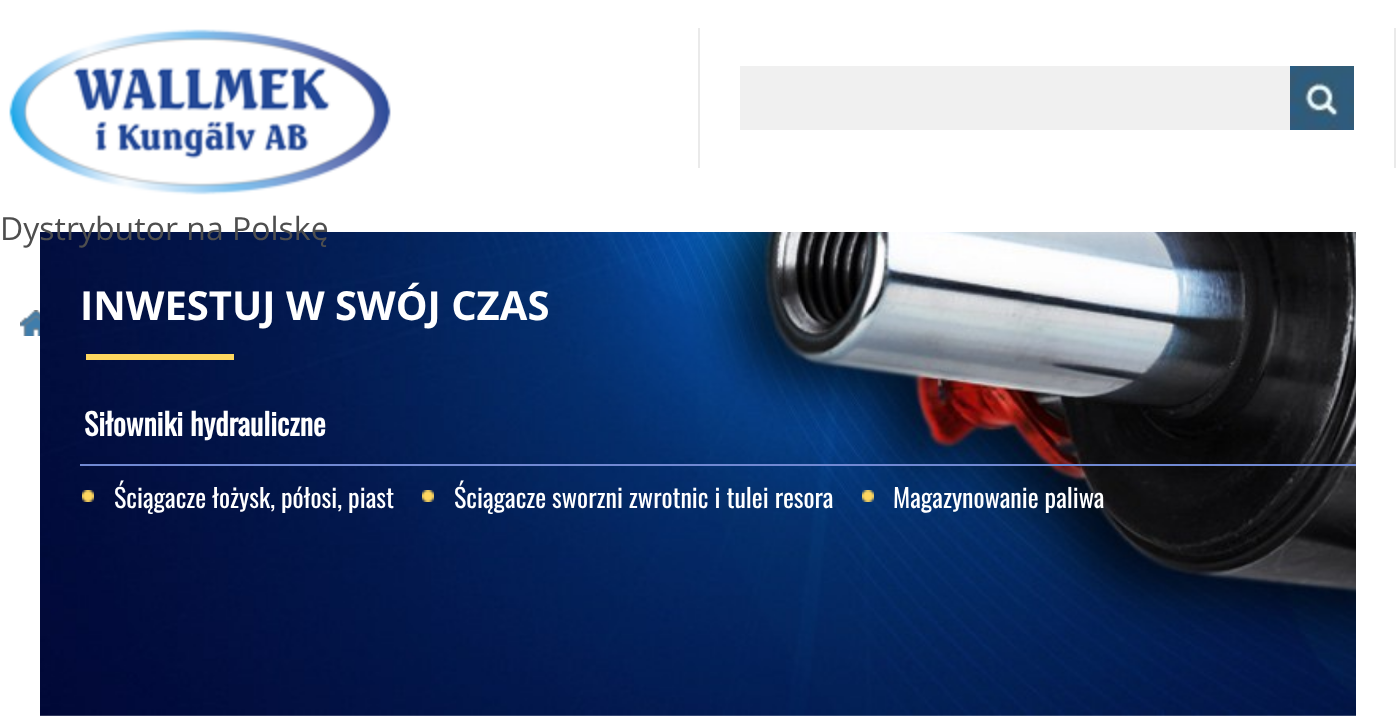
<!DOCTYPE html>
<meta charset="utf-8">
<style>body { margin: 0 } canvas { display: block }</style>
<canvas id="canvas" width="1396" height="716"></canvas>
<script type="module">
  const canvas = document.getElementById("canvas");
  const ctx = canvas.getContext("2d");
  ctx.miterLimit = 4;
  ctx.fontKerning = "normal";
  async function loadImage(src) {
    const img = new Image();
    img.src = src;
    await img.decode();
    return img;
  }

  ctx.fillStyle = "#ffffff";
  ctx.fillRect(0, 0, 1396, 716);
  ctx.fillStyle = "#eaeaea";
  ctx.fillRect(1394, 28, 2, 140);
  ctx.fillRect(698, 28, 2, 140);
  ctx.fillStyle = "#f0f0f0";
  ctx.fillRect(740, 66, 550, 64);
  ctx.drawImage(await loadImage("img1.png"), 1290, 66, 64, 64);
  ctx.drawImage(await loadImage("img2.png"), 9, 29, 382, 166);
  ctx.drawImage(await loadImage("img4.png"), 40, 232, 1316, 484);
  ctx.font = "32px Open Sans";
  ctx.fillStyle = "#4e4e4e";
  ctx.fillText("Dystrybutor na Polskę", 0, 240);
  ctx.drawImage(await loadImage("img3.png"), 20, 310, 20, 26);
  ctx.font = "bold 40px Open Sans";
  ctx.fillStyle = "#ffffff";
  ctx.fillText("INWESTUJ W SWÓJ CZAS", 80, 320);
  ctx.fillStyle = "#ffd75f";
  ctx.fillRect(86, 354, 148, 6);
  ctx.fillStyle = "#7189d3";
  ctx.fillRect(80, 464, 1276, 2);
  ctx.font = "bold 30px Oswald";
  ctx.fillStyle = "#ffffff";
  ctx.fillText("Siłowniki hydrauliczne", 84, 436);
  ctx.drawImage(await loadImage("img5.png"), 82, 490, 12, 12);
  ctx.font = "26px Oswald";
  ctx.fillText("Ściągacze łożysk, półosi, piast", 114, 508);
  ctx.drawImage(await loadImage("img6.png"), 422, 490, 12, 12);
  ctx.fillText("Ściągacze sworzni zwrotnic i tulei resora", 454, 508);
  ctx.drawImage(await loadImage("img7.png"), 862, 490, 12, 12);
  ctx.fillText("Magazynowanie paliwa", 893, 508);
</script>
